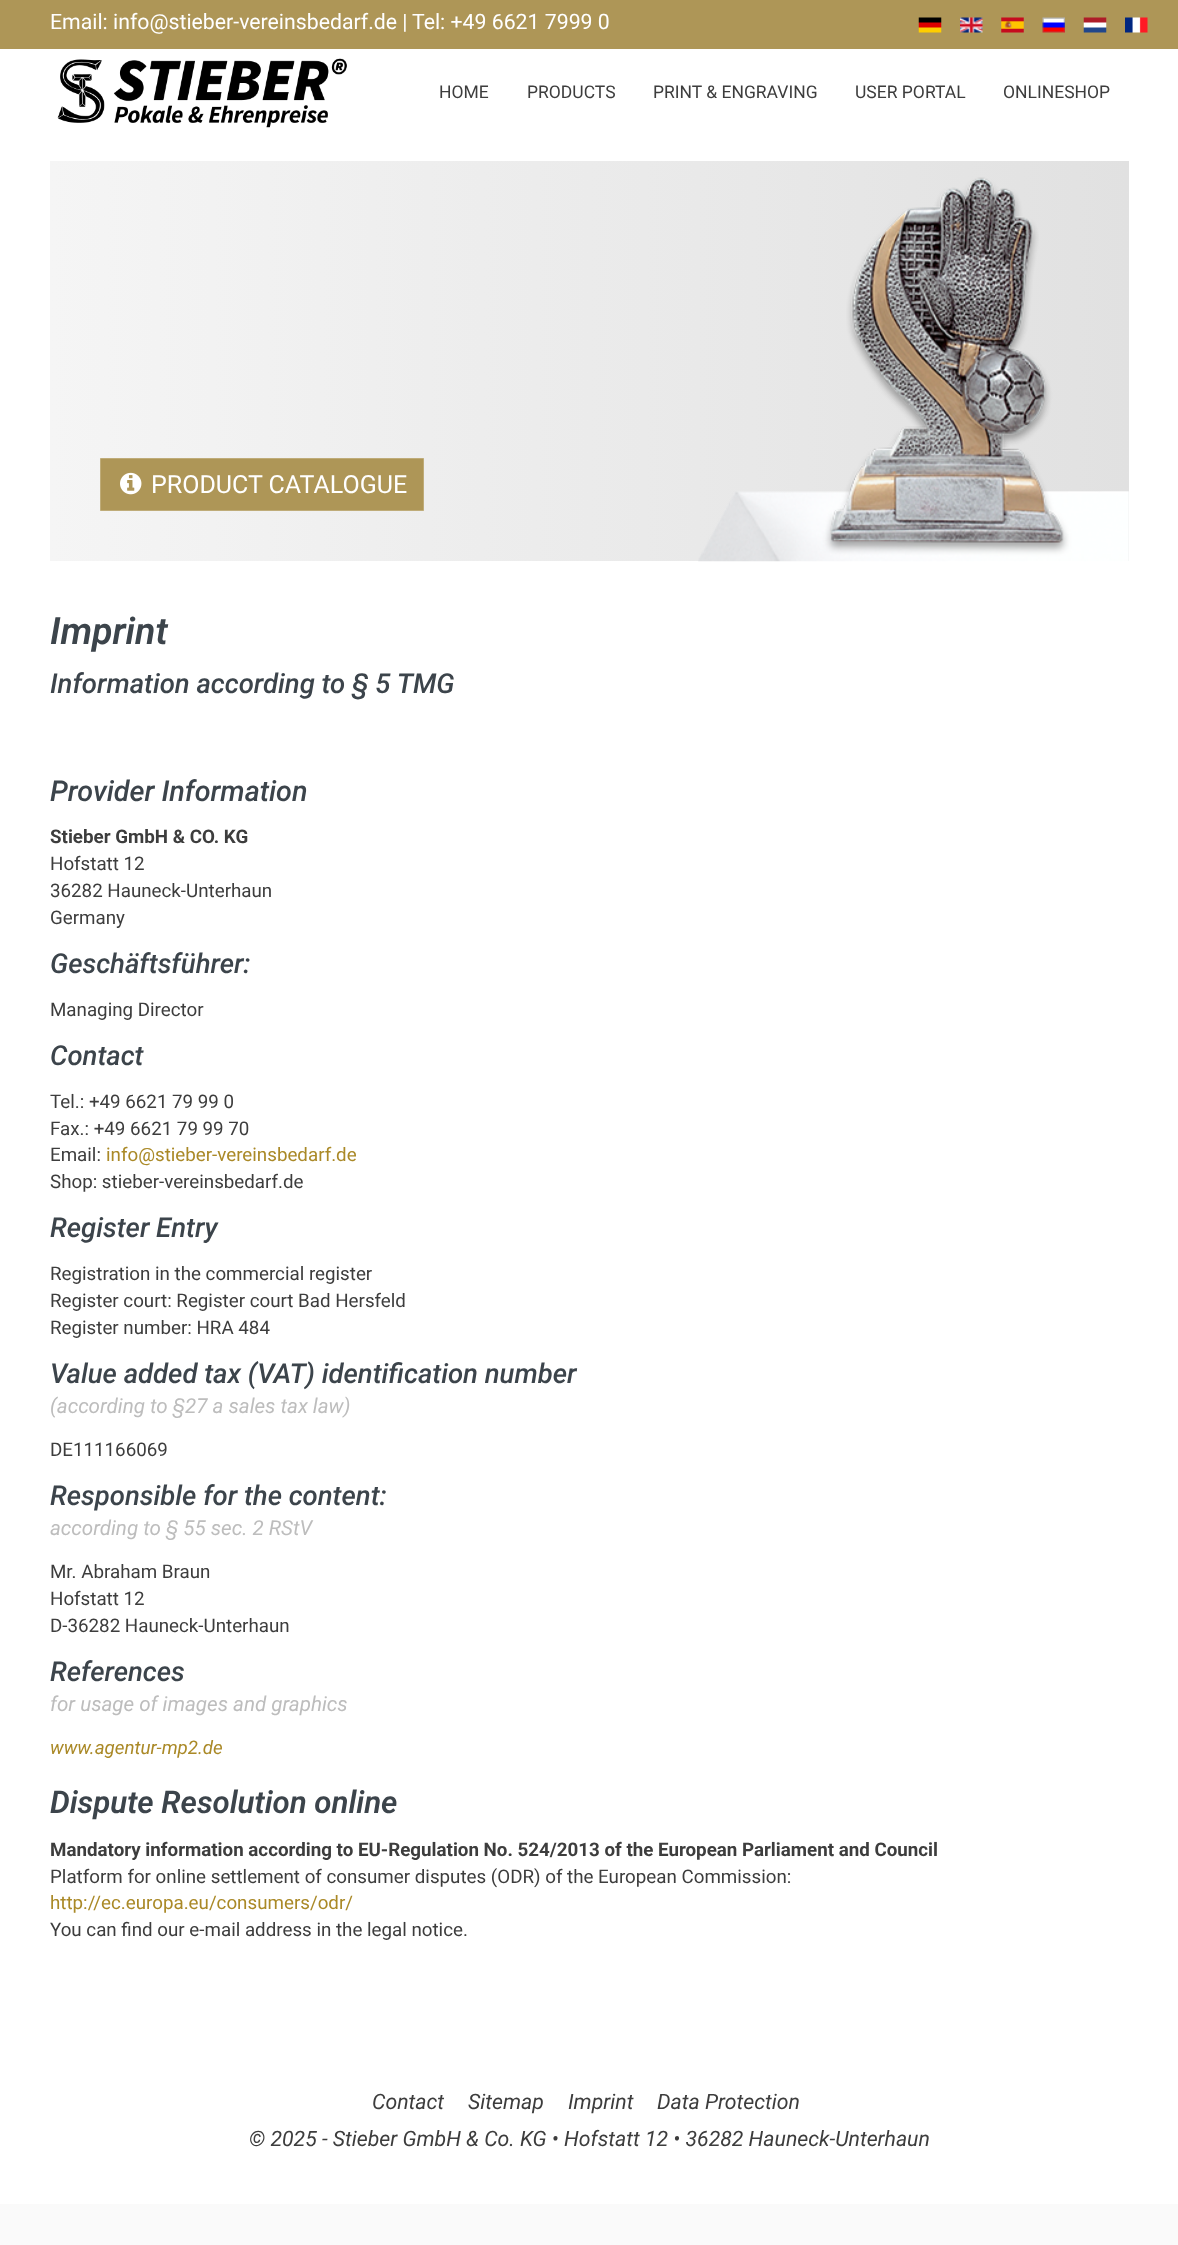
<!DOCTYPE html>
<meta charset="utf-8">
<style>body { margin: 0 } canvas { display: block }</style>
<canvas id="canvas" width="1178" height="2245"></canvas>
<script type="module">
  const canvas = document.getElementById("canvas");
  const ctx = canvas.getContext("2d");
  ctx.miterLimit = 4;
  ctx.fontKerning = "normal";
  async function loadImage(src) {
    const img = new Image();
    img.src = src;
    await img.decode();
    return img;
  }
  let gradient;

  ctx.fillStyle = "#fafafa";
  ctx.fillRect(0, 0, 1178, 2245);
  ctx.fillStyle = "#ffffff";
  ctx.fillRect(0, 49, 1178, 2155);
  ctx.fillStyle = "#ae9657";
  ctx.fillRect(0, 0, 1178, 49);
  ctx.font = "21.25px Roboto";
  ctx.fillStyle = "#ffffff";
  ctx.fillText("Email: info@stieber-vereinsbedarf.de |", 50, 29);
  ctx.fillText("Tel: +49 6621 7999 0", 412, 29);
  ctx.drawImage(await loadImage("img1.png"), 918, 17, 24, 16);
  ctx.drawImage(await loadImage("img2.png"), 960, 17, 23, 16);
  ctx.drawImage(await loadImage("img3.png"), 1001, 17, 23, 16);
  ctx.drawImage(await loadImage("img4.png"), 1042, 17, 23, 16);
  ctx.drawImage(await loadImage("img5.png"), 1083, 17, 24, 16);
  ctx.drawImage(await loadImage("img6.png"), 1125, 17, 23, 16);
  ctx.drawImage(await loadImage("img7.png"), 57, 58, 290, 70);
  ctx.font = "17.5px Roboto";
  ctx.fillStyle = "#3d3d3d";
  ctx.fillText("HOME", 439, 98);
  ctx.fillText("PRODUCTS", 527, 98);
  ctx.fillText("PRINT & ENGRAVING", 653, 98);
  ctx.fillText("USER PORTAL", 855, 98);
  ctx.fillText("ONLINESHOP", 1003, 98);
  gradient = ctx.createLinearGradient(50, 361, 1129, 361);
  gradient.addColorStop(0, "#f5f5f5");
  gradient.addColorStop(1, "#e1e1e1");
  ctx.fillStyle = gradient;
  ctx.fillRect(50, 161, 1079, 400);
  ctx.fillStyle = "#ae9657";
  ctx.beginPath();
  ctx.rect(100.5, 458.5, 323, 52);
  ctx.fill();
  ctx.strokeStyle = "#bfac79";
  ctx.stroke();
  ctx.drawImage(await loadImage("img8.png"), 120, 472, 22, 23);
  ctx.font = "25px Roboto";
  ctx.fillStyle = "#ffffff";
  ctx.fillText("PRODUCT CATALOGUE", 151, 493);
  ctx.drawImage(await loadImage("img9.png"), 698, 177, 431, 385);
  ctx.font = "italic 600 37.5px Roboto";
  ctx.fillStyle = "#3c444b";
  ctx.fillText("Imprint", 50, 644);
  ctx.font = "italic 500 27.5px Roboto";
  ctx.fillText("Information according to § 5 TMG", 50, 693);
  ctx.font = "italic 500 28.75px Roboto";
  ctx.fillText("Provider Information", 50, 801);
  ctx.font = "bold 18.75px Roboto";
  ctx.fillStyle = "#3d3d3d";
  ctx.fillText("Stieber GmbH & CO. KG", 50, 843);
  ctx.font = "18.75px Roboto";
  ctx.fillText("Hofstatt 12", 50, 870);
  ctx.fillText("36282 Hauneck-Unterhaun", 50, 897);
  ctx.fillText("Germany", 50, 924);
  ctx.font = "italic 500 27.5px Roboto";
  ctx.fillStyle = "#3c444b";
  ctx.fillText("Geschäftsführer:", 50, 973);
  ctx.font = "18.75px Roboto";
  ctx.fillStyle = "#3d3d3d";
  ctx.fillText("Managing Director", 50, 1016);
  ctx.font = "italic 500 27.5px Roboto";
  ctx.fillStyle = "#3c444b";
  ctx.fillText("Contact", 50, 1065);
  ctx.font = "18.75px Roboto";
  ctx.fillStyle = "#3d3d3d";
  ctx.fillText("Tel.: +49 6621 79 99 0", 50, 1108);
  ctx.fillText("Fax.: +49 6621 79 99 70", 50, 1135);
  ctx.fillText("Email:", 50, 1161);
  ctx.fillStyle = "#aa8927";
  ctx.fillText("info@stieber-vereinsbedarf.de", 106, 1161);
  ctx.fillStyle = "#3d3d3d";
  ctx.fillText("Shop: stieber-vereinsbedarf.de", 50, 1188);
  ctx.font = "italic 500 27.5px Roboto";
  ctx.fillStyle = "#3c444b";
  ctx.fillText("Register Entry", 50, 1237);
  ctx.font = "18.75px Roboto";
  ctx.fillStyle = "#3d3d3d";
  ctx.fillText("Registration in the commercial register", 50, 1280);
  ctx.fillText("Register court: Register court Bad Hersfeld", 50, 1307);
  ctx.fillText("Register number: HRA 484", 50, 1334);
  ctx.font = "italic 500 27.5px Roboto";
  ctx.fillStyle = "#3c444b";
  ctx.fillText("Value added tax (VAT) identification number", 50, 1383);
  ctx.font = "italic 20.6px Roboto";
  ctx.fillStyle = "#bdbdbd";
  ctx.fillText("(according to §27 a sales tax law)", 50, 1413);
  ctx.font = "18.75px Roboto";
  ctx.fillStyle = "#3d3d3d";
  ctx.fillText("DE111166069", 50, 1456);
  ctx.font = "italic 500 27.5px Roboto";
  ctx.fillStyle = "#3c444b";
  ctx.fillText("Responsible for the content:", 50, 1505);
  ctx.font = "italic 20.6px Roboto";
  ctx.fillStyle = "#bdbdbd";
  ctx.fillText("according to § 55 sec. 2 RStV", 50, 1535);
  ctx.font = "18.75px Roboto";
  ctx.fillStyle = "#3d3d3d";
  ctx.fillText("Mr. Abraham Braun", 50, 1578);
  ctx.fillText("Hofstatt 12", 50, 1605);
  ctx.fillText("D-36282 Hauneck-Unterhaun", 50, 1632);
  ctx.font = "italic 500 27.5px Roboto";
  ctx.fillStyle = "#3c444b";
  ctx.fillText("References", 50, 1681);
  ctx.font = "italic 20.6px Roboto";
  ctx.fillStyle = "#bdbdbd";
  ctx.fillText("for usage of images and graphics", 50, 1711);
  ctx.font = "italic 18.75px Roboto";
  ctx.fillStyle = "#aa8927";
  ctx.fillText("www.agentur-mp2.de", 50, 1754);
  ctx.font = "italic 600 31.25px Roboto";
  ctx.fillStyle = "#3c444b";
  ctx.fillText("Dispute Resolution online", 50, 1813);
  ctx.font = "bold 18.75px Roboto";
  ctx.fillStyle = "#3d3d3d";
  ctx.fillText("Mandatory information according to EU-Regulation No. 524/2013 of the European Parliament and Council", 50, 1856);
  ctx.font = "18.75px Roboto";
  ctx.fillText("Platform for online settlement of consumer disputes (ODR) of the European Commission:", 50, 1883);
  ctx.fillStyle = "#aa8927";
  ctx.fillText("http://ec.europa.eu/consumers/odr/", 50, 1909);
  ctx.fillStyle = "#3d3d3d";
  ctx.fillText("You can find our e-mail address in the legal notice.", 50, 1936);
  ctx.font = "italic 21.25px Roboto";
  ctx.fillText("Contact", 372, 2109);
  ctx.fillText("Sitemap", 468, 2109);
  ctx.fillText("Imprint", 568, 2109);
  ctx.fillText("Data Protection", 657, 2109);
  ctx.fillText("© 2025 - Stieber GmbH & Co. KG • Hofstatt 12 • 36282 Hauneck-Unterhaun", 249, 2146);
</script>
